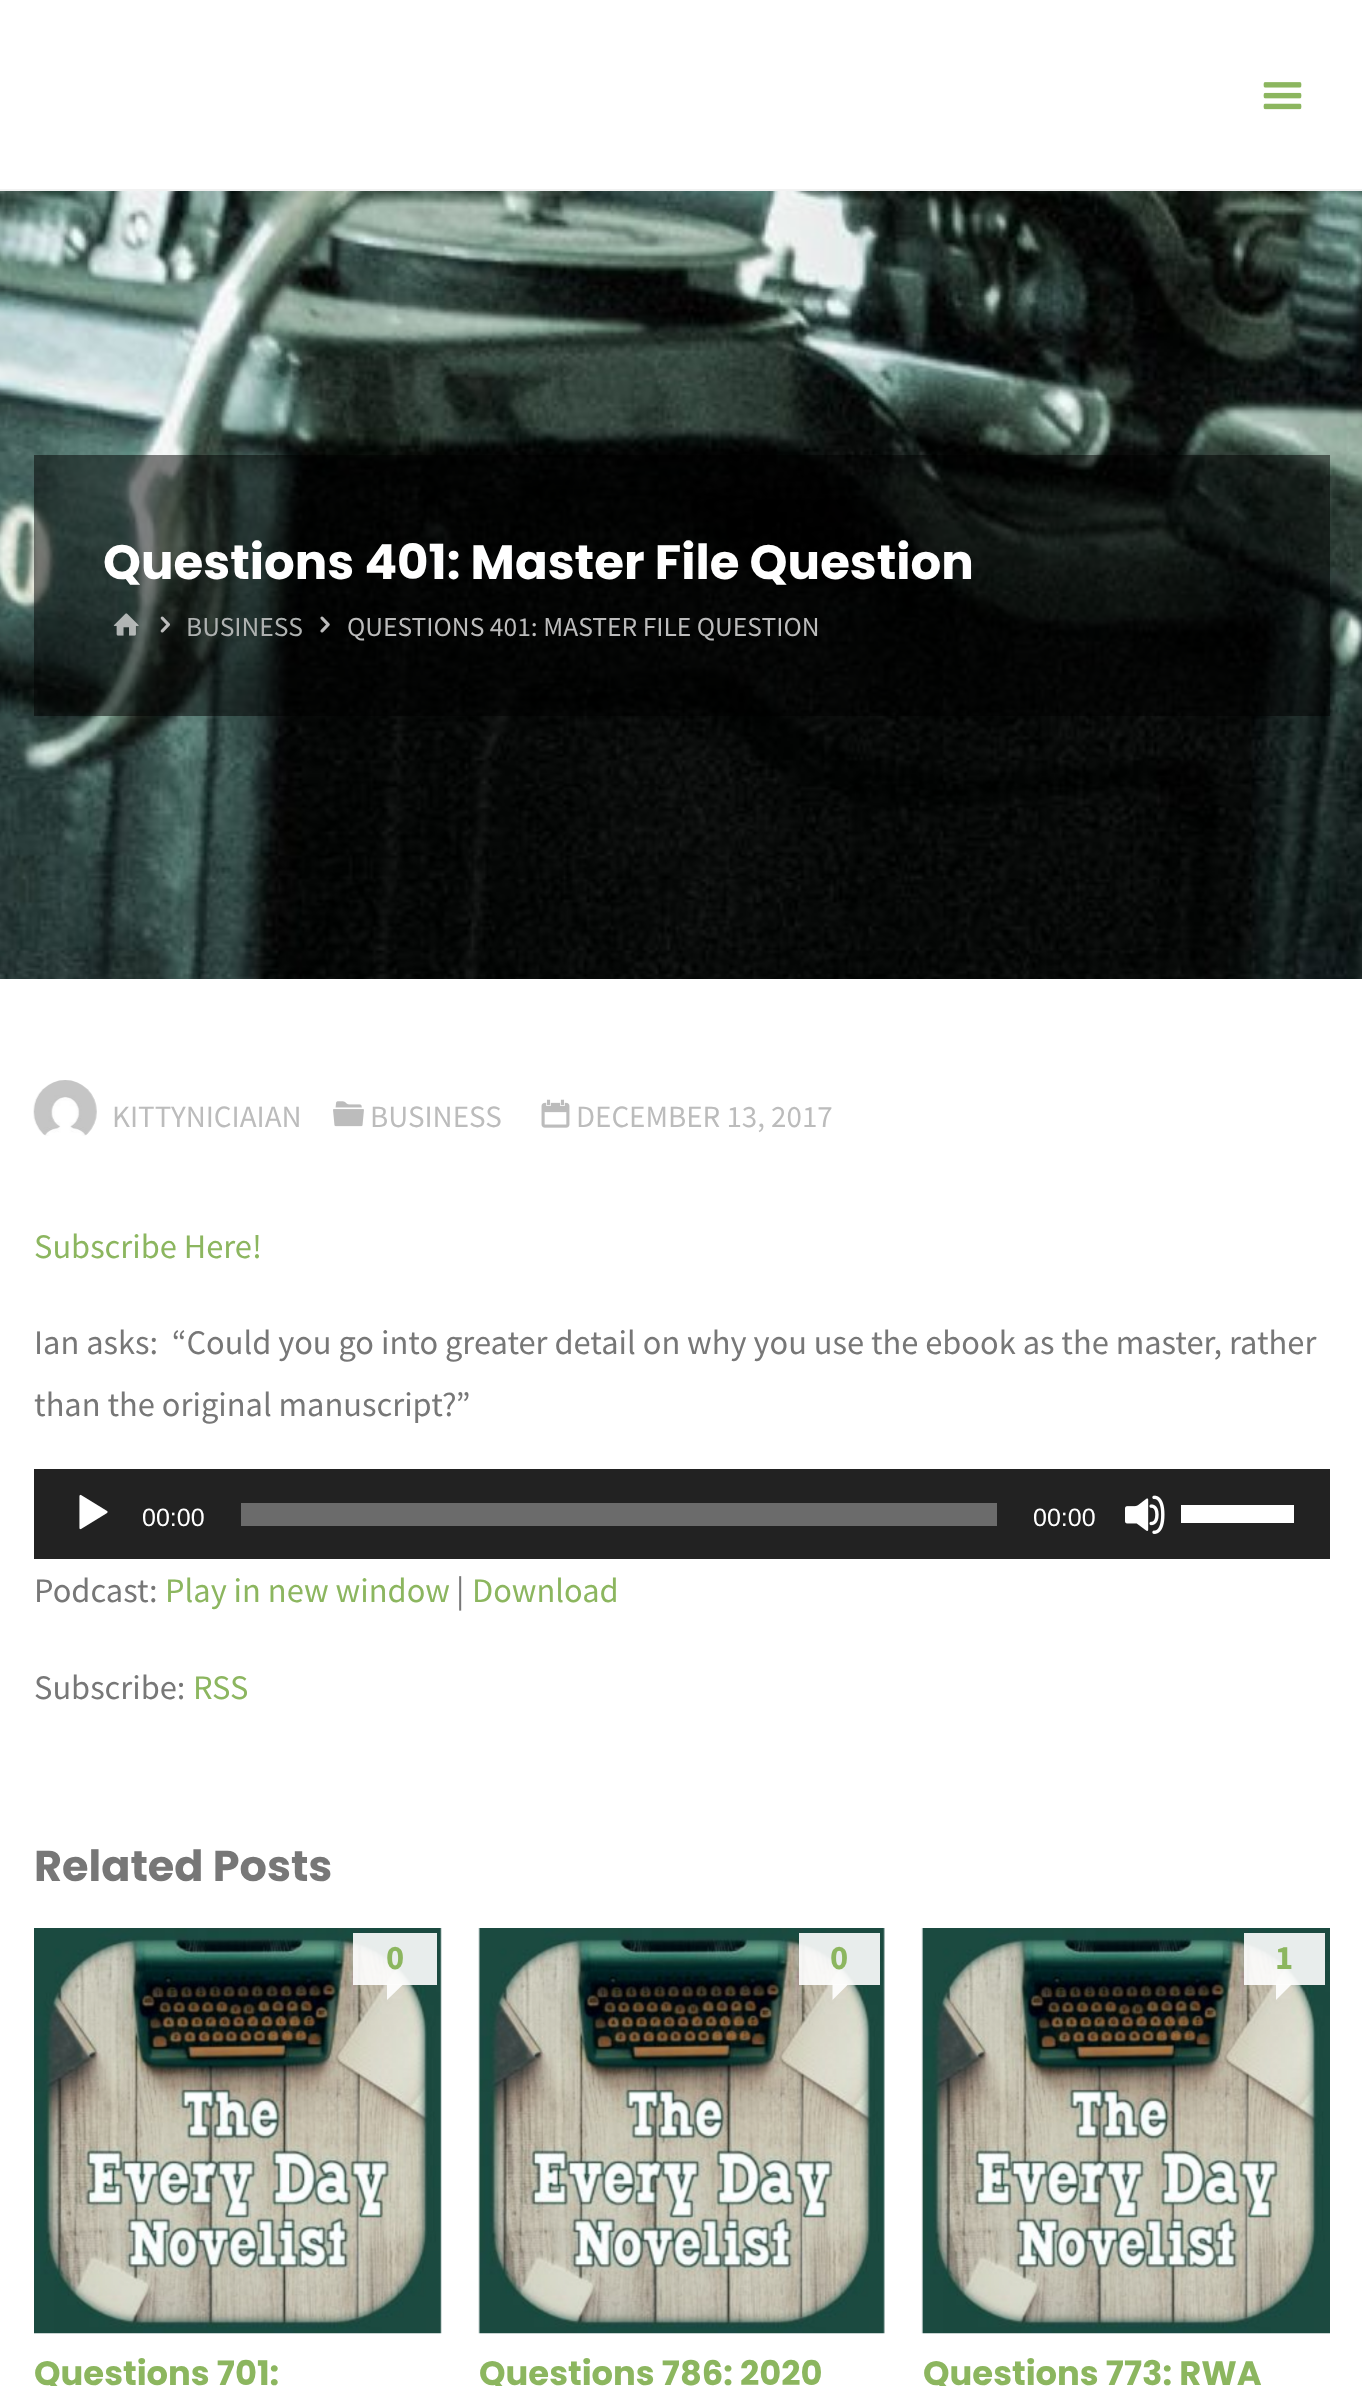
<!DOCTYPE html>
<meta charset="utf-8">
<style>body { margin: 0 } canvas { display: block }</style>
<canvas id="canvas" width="1362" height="2386"></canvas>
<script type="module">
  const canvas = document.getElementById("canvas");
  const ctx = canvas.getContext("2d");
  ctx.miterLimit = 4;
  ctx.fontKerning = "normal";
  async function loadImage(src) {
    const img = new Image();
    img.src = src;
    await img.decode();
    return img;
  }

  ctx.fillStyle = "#ffffff";
  ctx.fillRect(0, 0, 1362, 2386);
  ctx.fillStyle = "#f2f2f2";
  ctx.fillRect(0, 189, 1362, 2);
  ctx.drawImage(await loadImage("img1.png"), 1263, 82, 39, 28);
  ctx.drawImage(await loadImage("img2.png"), 0, 191, 1362, 788);
  ctx.fillStyle = "rgba(0, 0, 0, 0.5)";
  ctx.fillRect(34, 455, 1296, 261);
  ctx.font = "bold 48.25px Poppins";
  ctx.fillStyle = "#ffffff";
  ctx.fillText("Questions 401: Master File Question", 103, 579);
  ctx.drawImage(await loadImage("img3.png"), 113, 613, 26, 23);
  ctx.drawImage(await loadImage("img4.png"), 160, 616, 10, 17);
  ctx.font = "27.5px Source Sans Pro";
  ctx.fillStyle = "#aeb1b0";
  ctx.fillText("BUSINESS", 186, 636);
  ctx.drawImage(await loadImage("img5.png"), 320, 616, 10, 17);
  ctx.fillStyle = "#bcbcbc";
  ctx.fillText("QUESTIONS 401: MASTER FILE QUESTION", 347, 636);
  ctx.drawImage(await loadImage("img6.png"), 33, 1080, 64, 56);
  ctx.font = "31px Source Sans Pro";
  ctx.fillText("KITTYNICIAIAN", 112, 1127);
  ctx.drawImage(await loadImage("img7.png"), 333, 1101, 31, 26);
  ctx.fillText("BUSINESS", 370, 1127);
  ctx.drawImage(await loadImage("img8.png"), 541, 1099, 29, 29);
  ctx.fillText("DECEMBER 13, 2017", 576, 1127);
  ctx.font = "34.45px Source Sans Pro";
  ctx.fillStyle = "#8cb65f";
  ctx.fillText("Subscribe Here!", 34, 1258);
  ctx.fillStyle = "#777777";
  ctx.fillText("Ian asks:  “Could you go into greater detail on why you use the ebook as the master, rather", 34, 1354);
  ctx.fillText("than the original manuscript?”", 34, 1416);
  ctx.fillStyle = "#222222";
  ctx.fillRect(34, 1469, 1296, 90);
  ctx.drawImage(await loadImage("img9.png"), 79, 1494, 29, 36);
  ctx.font = "25px Liberation Sans";
  ctx.fillStyle = "#ffffff";
  ctx.fillText("00:00", 142, 1526);
  ctx.fillStyle = "#6b6b6b";
  ctx.fillRect(241, 1503, 756, 23);
  ctx.fillStyle = "#ffffff";
  ctx.fillText("00:00", 1033, 1526);
  ctx.drawImage(await loadImage("img10.png"), 1125, 1495, 40, 39);
  ctx.fillRect(1181, 1505, 113, 18);
  ctx.font = "34.45px Source Sans Pro";
  ctx.fillStyle = "#777777";
  ctx.fillText("Podcast:", 34, 1602);
  ctx.fillStyle = "#8cb65f";
  ctx.fillText("Play in new window", 165, 1602);
  ctx.fillStyle = "#777777";
  ctx.fillText("|", 456, 1602);
  ctx.fillStyle = "#8cb65f";
  ctx.fillText("Download", 472, 1602);
  ctx.fillStyle = "#777777";
  ctx.fillText("Subscribe:", 34, 1699);
  ctx.fillStyle = "#8cb65f";
  ctx.fillText("RSS", 193, 1699);
  ctx.font = "bold 43px Poppins";
  ctx.fillStyle = "#777777";
  ctx.fillText("Related Posts", 34, 1881);
  ctx.drawImage(await loadImage("img11.png"), 34, 1928, 408, 406);
  ctx.fillStyle = "rgba(255, 255, 255, 0.9)";
  ctx.fillRect(353, 1933, 84, 52);
  ctx.font = "bold 34.45px Source Sans Pro";
  ctx.fillStyle = "#8cb65f";
  ctx.fillText("0", 386, 1969);
  ctx.fillStyle = "rgba(255, 255, 255, 0.9)";
  ctx.beginPath();
  ctx.moveTo(387, 1984.5);
  ctx.lineTo(403, 1984.5);
  ctx.lineTo(387, 2000);
  ctx.closePath();
  ctx.fill();
  ctx.font = "bold 33.75px Poppins";
  ctx.fillStyle = "#8cb65f";
  ctx.fillText("Questions 701:", 34, 2385);
  ctx.drawImage(await loadImage("img12.png"), 478, 1928, 407, 406);
  ctx.fillStyle = "rgba(255, 255, 255, 0.9)";
  ctx.fillRect(799, 1933, 81, 52);
  ctx.font = "bold 34.45px Source Sans Pro";
  ctx.fillStyle = "#8cb65f";
  ctx.fillText("0", 830, 1969);
  ctx.fillStyle = "rgba(255, 255, 255, 0.9)";
  ctx.beginPath();
  ctx.moveTo(832.5, 1984.5);
  ctx.lineTo(848, 1984.5);
  ctx.lineTo(832.5, 2000);
  ctx.closePath();
  ctx.fill();
  ctx.font = "bold 33.75px Poppins";
  ctx.fillStyle = "#8cb65f";
  ctx.fillText("Questions 786: 2020", 479, 2385);
  ctx.drawImage(await loadImage("img13.png"), 921, 1928, 409, 406);
  ctx.fillStyle = "rgba(255, 255, 255, 0.9)";
  ctx.fillRect(1244, 1933, 81, 52);
  ctx.font = "bold 34.45px Source Sans Pro";
  ctx.fillStyle = "#8cb65f";
  ctx.fillText("1", 1275, 1969);
  ctx.fillStyle = "rgba(255, 255, 255, 0.9)";
  ctx.beginPath();
  ctx.moveTo(1276, 1984.5);
  ctx.lineTo(1291.5, 1984.5);
  ctx.lineTo(1276, 2000);
  ctx.closePath();
  ctx.fill();
  ctx.font = "bold 33.75px Poppins";
  ctx.fillStyle = "#8cb65f";
  ctx.fillText("Questions 773: RWA", 923, 2385);
</script>
